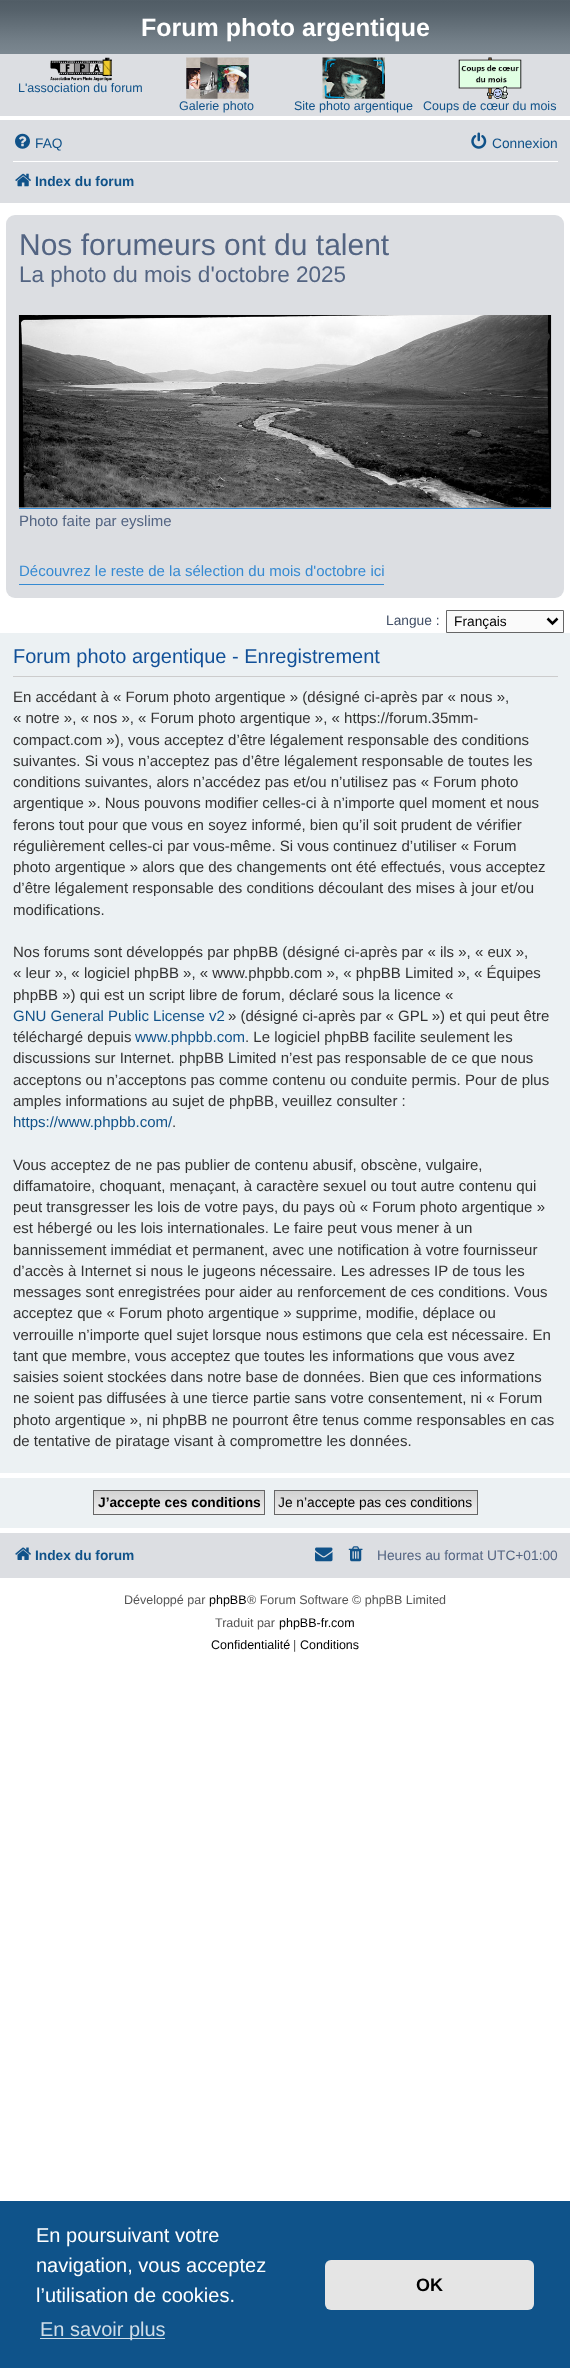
<!DOCTYPE html>
<meta charset="utf-8">
<style>body { margin: 0 } canvas { display: block }</style>
<canvas id="canvas" width="570" height="2368"></canvas>
<script type="module">
  const canvas = document.getElementById("canvas");
  const ctx = canvas.getContext("2d");
  ctx.miterLimit = 4;
  ctx.fontKerning = "normal";
  async function loadImage(src) {
    const img = new Image();
    img.src = src;
    await img.decode();
    return img;
  }
  let gradient;

  ctx.fillStyle = "#ffffff";
  ctx.fillRect(0, 0, 570, 2368);
  gradient = ctx.createLinearGradient(285, 0, 285, 55);
  gradient.addColorStop(0, "#6e777f");
  gradient.addColorStop(0.01, "#505c65");
  gradient.addColorStop(0.2, "#56626b");
  gradient.addColorStop(0.75, "#737f88");
  gradient.addColorStop(1, "#7c8891");
  ctx.fillStyle = gradient;
  ctx.fillRect(0, 0, 570, 54);
  ctx.font = "bold 25px Liberation Sans";
  ctx.fillStyle = "#ffffff";
  ctx.fillText("Forum photo argentique", 141, 36);
  ctx.fillStyle = "#dcdee2";
  ctx.fillRect(0, 54, 570, 62);
  ctx.drawImage(await loadImage("img1.png"), 50, 57, 62, 25);
  ctx.font = "12.5px Liberation Sans";
  ctx.fillStyle = "#105289";
  ctx.fillText("L'association du forum", 18, 92);
  ctx.drawImage(await loadImage("img2.png"), 186, 57, 63, 42);
  ctx.fillText("Galerie photo", 179, 110);
  ctx.drawImage(await loadImage("img3.png"), 322, 57, 63, 42);
  ctx.fillText("Site photo argentique", 294, 110);
  ctx.drawImage(await loadImage("img4.png"), 458, 57, 64, 42);
  ctx.fillText("Coups de cœur du mois", 423, 110);
  ctx.fillStyle = "#dcdee2";
  ctx.fillRect(0, 120, 570, 83);
  ctx.drawImage(await loadImage("img5.png"), 15, 133, 15, 16);
  ctx.font = "13.75px Liberation Sans";
  ctx.fillStyle = "#105289";
  ctx.fillText("FAQ", 35, 148);
  ctx.drawImage(await loadImage("img6.png"), 471, 132, 16, 17);
  ctx.fillText("Connexion", 492, 148);
  ctx.fillStyle = "#ffffff";
  ctx.fillRect(13, 161, 545, 1);
  ctx.drawImage(await loadImage("img7.png"), 15, 173, 16, 14);
  ctx.font = "bold 13.75px Liberation Sans";
  ctx.fillStyle = "#105289";
  ctx.fillText("Index du forum", 35, 186);
  ctx.fillStyle = "#dcdee2";
  ctx.beginPath();
  ctx.roundRect(6, 215, 558, 383, 9);
  ctx.fill();
  ctx.font = "30px Liberation Sans";
  ctx.fillStyle = "#536482";
  ctx.fillText("Nos forumeurs ont du talent", 19, 255);
  ctx.font = "22.5px Liberation Sans";
  ctx.fillText("La photo du mois d'octobre 2025", 19, 282);
  ctx.fillStyle = "#368ad2";
  ctx.fillRect(19, 508, 532, 1);
  ctx.drawImage(await loadImage("img8.png"), 18, 315, 534, 193);
  ctx.font = "15px Liberation Sans";
  ctx.fillStyle = "#536482";
  ctx.fillText("Photo faite par eyslime", 19, 526);
  ctx.fillStyle = "#368ad2";
  ctx.fillRect(19, 584, 365, 1);
  ctx.fillText("Découvrez le reste de la sélection du mois d'octobre ici", 19, 576);
  ctx.font = "13.75px Liberation Sans";
  ctx.fillStyle = "#425067";
  ctx.fillText("Langue :", 386, 625);
  ctx.fillStyle = "#fafafa";
  ctx.beginPath();
  ctx.rect(446.5, 610.5, 117, 22);
  ctx.fill();
  ctx.strokeStyle = "#666666";
  ctx.stroke();
  ctx.beginPath();
  ctx.moveTo(547.5, 618.5);
  ctx.lineTo(552.5, 623.5);
  ctx.lineTo(557.5, 618.5);
  ctx.strokeStyle = "#000000";
  ctx.lineWidth = 2.5;
  ctx.stroke();
  ctx.fillStyle = "#000000";
  ctx.fillText("Français", 454, 626);
  ctx.fillStyle = "#ecf1f3";
  ctx.fillRect(0, 633, 570, 840);
  ctx.fillStyle = "#cccccc";
  ctx.fillRect(13, 676, 545, 1);
  ctx.font = "20px Liberation Sans";
  ctx.fillStyle = "#115098";
  ctx.fillText("Forum photo argentique - Enregistrement", 13, 663);
  ctx.font = "15px Liberation Sans";
  ctx.fillStyle = "#333333";
  ctx.fillText("En accédant à « Forum photo argentique » (désigné ci-après par « nous »,", 13, 702);
  ctx.fillText("« notre », « nos », « Forum photo argentique », « https://forum.35mm-", 13, 723);
  ctx.fillText("compact.com »), vous acceptez d’être légalement responsable des conditions", 13, 745);
  ctx.fillText("suivantes. Si vous n’acceptez pas d’être légalement responsable de toutes les", 13, 766);
  ctx.fillText("conditions suivantes, alors n’accédez pas et/ou n’utilisez pas « Forum photo", 13, 787);
  ctx.fillText("argentique ». Nous pouvons modifier celles-ci à n’importe quel moment et nous", 13, 808);
  ctx.fillText("ferons tout pour que vous en soyez informé, bien qu’il soit prudent de vérifier", 13, 830);
  ctx.fillText("régulièrement celles-ci par vous-même. Si vous continuez d’utiliser « Forum", 13, 851);
  ctx.fillText("photo argentique » alors que des changements ont été effectués, vous acceptez", 13, 872);
  ctx.fillText("d’être légalement responsable des conditions découlant des mises à jour et/ou", 13, 893);
  ctx.fillText("modifications.", 13, 915);
  ctx.fillText("Nos forums sont développés par phpBB (désigné ci-après par « ils », « eux »,", 13, 957);
  ctx.fillText("« leur », « logiciel phpBB », « www.phpbb.com », « phpBB Limited », « Équipes", 13, 978);
  ctx.fillText("phpBB ») qui est un script libre de forum, déclaré sous la licence «", 13, 1000);
  ctx.fillStyle = "#105289";
  ctx.fillText("GNU General Public License v2", 13, 1021);
  ctx.fillStyle = "#333333";
  ctx.fillText("» (désigné ci-après par « GPL ») et qui peut être", 228, 1021);
  ctx.fillText("téléchargé depuis", 13, 1042);
  ctx.fillStyle = "#105289";
  ctx.fillText("www.phpbb.com", 135, 1042);
  ctx.fillStyle = "#333333";
  ctx.fillText(". Le logiciel phpBB facilite seulement les", 245, 1042);
  ctx.fillText("discussions sur Internet. phpBB Limited n’est pas responsable de ce que nous", 13, 1063);
  ctx.fillText("acceptons ou n’acceptons pas comme contenu ou conduite permis. Pour de plus", 13, 1085);
  ctx.fillText("amples informations au sujet de phpBB, veuillez consulter :", 13, 1106);
  ctx.fillStyle = "#105289";
  ctx.fillText("https://www.phpbb.com/", 13, 1127);
  ctx.fillStyle = "#333333";
  ctx.fillText(".", 172, 1127);
  ctx.fillText("Vous acceptez de ne pas publier de contenu abusif, obscène, vulgaire,", 13, 1170);
  ctx.fillText("diffamatoire, choquant, menaçant, à caractère sexuel ou tout autre contenu qui", 13, 1191);
  ctx.fillText("peut transgresser les lois de votre pays, du pays où « Forum photo argentique »", 13, 1212);
  ctx.fillText("est hébergé ou les lois internationales. Le faire peut vous mener à un", 13, 1233);
  ctx.fillText("bannissement immédiat et permanent, avec une notification à votre fournisseur", 13, 1255);
  ctx.fillText("d’accès à Internet si nous le jugeons nécessaire. Les adresses IP de tous les", 13, 1276);
  ctx.fillText("messages sont enregistrées pour aider au renforcement de ces conditions. Vous", 13, 1297);
  ctx.fillText("acceptez que « Forum photo argentique » supprime, modifie, déplace ou", 13, 1318);
  ctx.fillText("verrouille n’importe quel sujet lorsque nous estimons que cela est nécessaire. En", 13, 1340);
  ctx.fillText("tant que membre, vous acceptez que toutes les informations que vous avez", 13, 1361);
  ctx.fillText("saisies soient stockées dans notre base de données. Bien que ces informations", 13, 1382);
  ctx.fillText("ne soient pas diffusées à une tierce partie sans votre consentement, ni « Forum", 13, 1403);
  ctx.fillText("photo argentique », ni phpBB ne pourront être tenus comme responsables en cas", 13, 1425);
  ctx.fillText("de tentative de piratage visant à compromettre les données.", 13, 1446);
  ctx.fillStyle = "#ecf1f3";
  ctx.fillRect(0, 1478, 570, 50);
  gradient = ctx.createLinearGradient(179, 1491, 179, 1514);
  gradient.addColorStop(0, "#d2d2d2");
  gradient.addColorStop(1, "#efefef");
  ctx.fillStyle = gradient;
  ctx.fillRect(94, 1491, 170, 23);
  ctx.strokeStyle = "#666666";
  ctx.lineWidth = 1;
  ctx.strokeRect(93.5, 1490.5, 171, 24);
  ctx.font = "bold 13.75px Liberation Sans";
  ctx.fillStyle = "#000000";
  ctx.fillText("J’accepte ces conditions", 98, 1507);
  gradient = ctx.createLinearGradient(376, 1491, 376, 1514);
  gradient.addColorStop(0, "#d2d2d2");
  gradient.addColorStop(1, "#efefef");
  ctx.fillStyle = gradient;
  ctx.fillRect(275, 1491, 202, 23);
  ctx.strokeRect(274.5, 1490.5, 203, 24);
  ctx.font = "13.75px Liberation Sans";
  ctx.fillStyle = "#000000";
  ctx.fillText("Je n’accepte pas ces conditions", 278, 1507);
  ctx.fillStyle = "#dcdee2";
  ctx.fillRect(0, 1533, 570, 45);
  ctx.drawImage(await loadImage("img9.png"), 15, 1547, 16, 13);
  ctx.font = "bold 13.75px Liberation Sans";
  ctx.fillStyle = "#105289";
  ctx.fillText("Index du forum", 35, 1560);
  ctx.drawImage(await loadImage("img10.png"), 315, 1547, 18, 15);
  ctx.drawImage(await loadImage("img11.png"), 348, 1546, 15, 16);
  ctx.font = "13.75px Liberation Sans";
  ctx.fillStyle = "#536482";
  ctx.fillText("Heures au format UTC+01:00", 377, 1560);
  ctx.font = "12.5px Liberation Sans";
  ctx.fillStyle = "#555555";
  ctx.fillText("Développé par", 124, 1604);
  ctx.fillStyle = "#000000";
  ctx.fillText("phpBB", 209, 1604);
  ctx.fillStyle = "#555555";
  ctx.fillText("® Forum Software © phpBB Limited", 247, 1604);
  ctx.fillText("Traduit par", 215, 1627);
  ctx.fillStyle = "#000000";
  ctx.fillText("phpBB-fr.com", 279, 1627);
  ctx.fillText("Confidentialité", 211, 1649);
  ctx.fillStyle = "#555555";
  ctx.fillText("|", 293, 1649);
  ctx.fillStyle = "#000000";
  ctx.fillText("Conditions", 300, 1649);
  ctx.fillStyle = "#0f538a";
  ctx.fillRect(0, 2201, 570, 167);
  ctx.font = "20px Liberation Sans";
  ctx.fillStyle = "#ffffff";
  ctx.fillText("En poursuivant votre", 36, 2242);
  ctx.fillText("navigation, vous acceptez", 36, 2272);
  ctx.fillText("l’utilisation de cookies.", 36, 2302);
  ctx.fillStyle = "#cfdde8";
  ctx.fillRect(40, 2338, 125, 1);
  ctx.fillText("En savoir plus", 40, 2336);
  ctx.fillStyle = "#e5e5e5";
  ctx.beginPath();
  ctx.roundRect(325, 2260, 209, 50, 6);
  ctx.fill();
  ctx.font = "bold 18px Liberation Sans";
  ctx.fillStyle = "#000000";
  ctx.fillText("OK", 416, 2291);
</script>
